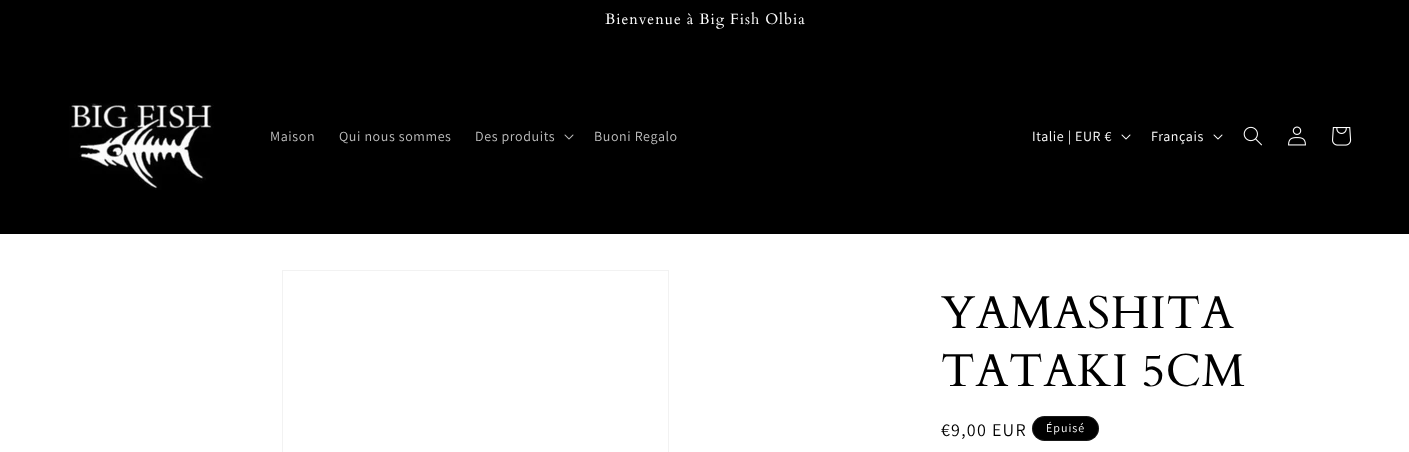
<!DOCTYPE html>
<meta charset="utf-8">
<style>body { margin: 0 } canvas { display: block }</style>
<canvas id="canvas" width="1409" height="452"></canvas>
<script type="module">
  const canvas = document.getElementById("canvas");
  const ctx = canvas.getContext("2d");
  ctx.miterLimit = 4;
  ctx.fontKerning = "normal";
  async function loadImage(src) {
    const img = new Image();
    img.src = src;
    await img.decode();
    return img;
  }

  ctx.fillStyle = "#000000";
  ctx.fillRect(0, 0, 1409, 452);
  ctx.letterSpacing = "1px";
  ctx.font = "15px Cardo";
  ctx.fillStyle = "#ffffff";
  ctx.fillText("Bienvenue à Big Fish Olbia", 605, 24);
  ctx.drawImage(await loadImage("img1.png"), 69, 102, 145, 88);
  ctx.letterSpacing = "0.6px";
  ctx.font = "14px Assistant";
  ctx.fillStyle = "#bfbfbf";
  ctx.fillText("Maison", 270, 141);
  ctx.fillText("Qui nous sommes", 339, 141);
  ctx.fillText("Des produits", 475, 141);
  ctx.drawImage(await loadImage("img2.png"), 564, 134, 10, 6);
  ctx.fillText("Buoni Regalo", 594, 141);
  ctx.fillStyle = "#ffffff";
  ctx.fillText("Italie | EUR €", 1032, 141);
  ctx.drawImage(await loadImage("img3.png"), 1121, 134, 10, 6);
  ctx.fillText("Français", 1151, 141);
  ctx.drawImage(await loadImage("img3.png"), 1213, 134, 10, 6);
  ctx.drawImage(await loadImage("img4.png"), 1243, 126, 19, 20);
  ctx.drawImage(await loadImage("img5.png"), 1288, 126, 18, 20);
  ctx.drawImage(await loadImage("img6.png"), 1332, 127, 20, 19);
  ctx.fillRect(0, 234, 1409, 218);
  ctx.strokeStyle = "#f2f2f2";
  ctx.strokeRect(282.5, 270.5, 386, 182);
  ctx.letterSpacing = "0.75px";
  ctx.font = "46px Cardo";
  ctx.fillStyle = "#000000";
  ctx.fillText("YAMASHITA", 941, 328);
  ctx.fillText("TATAKI 5CM", 941, 386);
  ctx.letterSpacing = "1.25px";
  ctx.font = "18px Assistant";
  ctx.fillText("€9,00 EUR", 941, 436);
  ctx.beginPath();
  ctx.roundRect(1032, 416, 67, 25, 12.5);
  ctx.fill();
  ctx.beginPath();
  ctx.roundRect(1032.5, 416.5, 66, 24, 12);
  ctx.strokeStyle = "rgba(255, 255, 255, 0.1)";
  ctx.stroke();
  ctx.letterSpacing = "1px";
  ctx.font = "12px Assistant";
  ctx.fillStyle = "#ffffff";
  ctx.fillText("Épuisé", 1046, 432);
</script>
